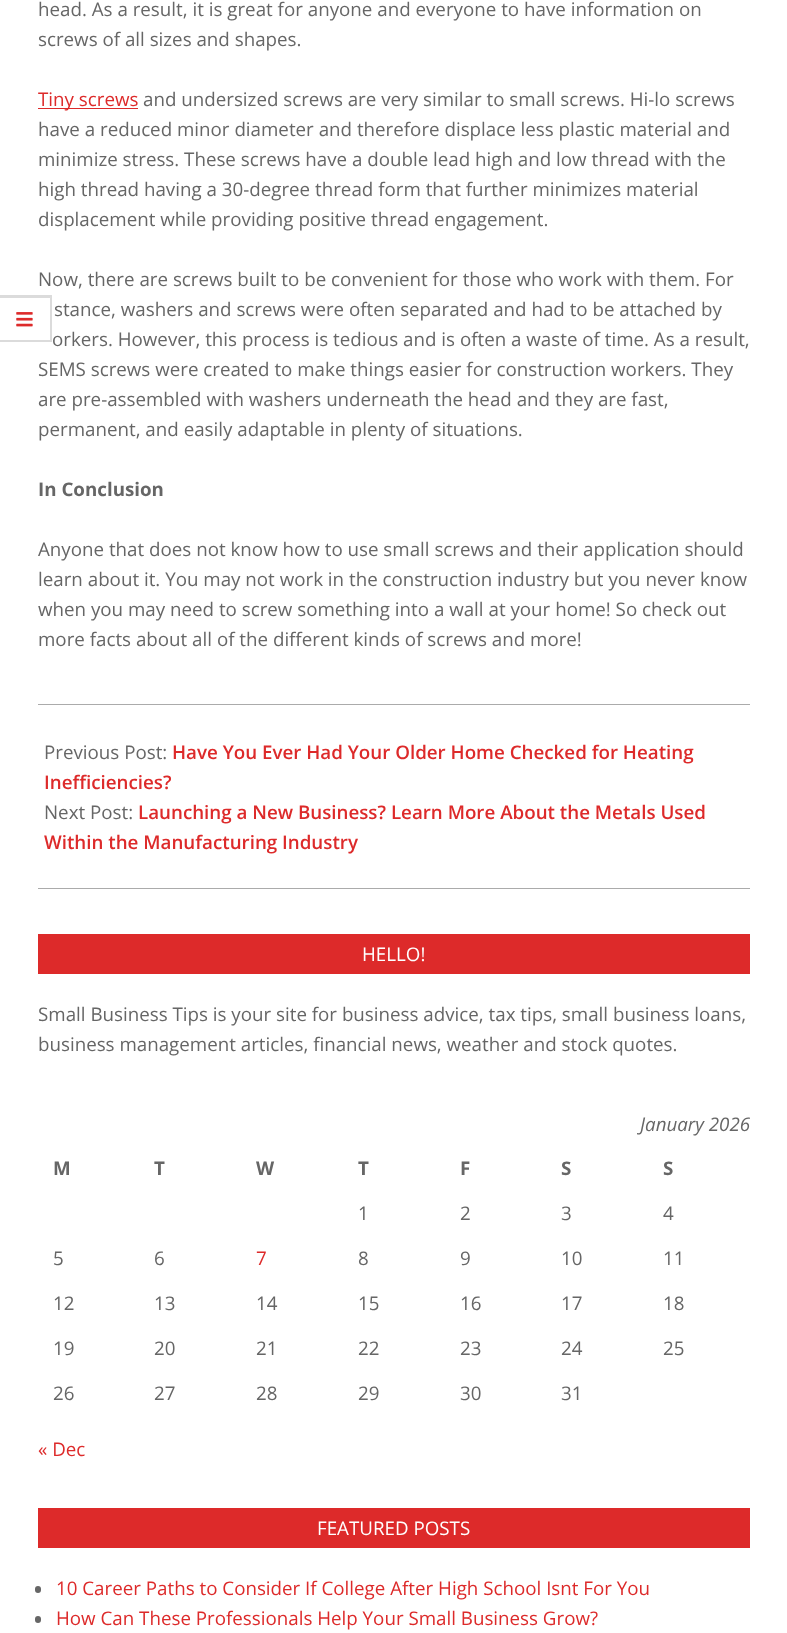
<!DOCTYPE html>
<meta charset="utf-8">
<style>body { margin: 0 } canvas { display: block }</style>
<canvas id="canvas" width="787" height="1633"></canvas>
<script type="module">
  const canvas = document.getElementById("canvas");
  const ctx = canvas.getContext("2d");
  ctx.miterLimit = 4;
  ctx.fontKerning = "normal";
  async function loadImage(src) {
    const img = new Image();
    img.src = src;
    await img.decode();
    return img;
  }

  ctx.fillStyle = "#ffffff";
  ctx.fillRect(0, 0, 787, 1633);
  ctx.fillStyle = "#dbdbdb";
  ctx.beginPath();
  ctx.moveTo(0, 295);
  ctx.lineTo(52, 295);
  ctx.lineTo(50, 298);
  ctx.lineTo(0, 298);
  ctx.closePath();
  ctx.fill();
  ctx.fillStyle = "rgba(0, 0, 0, 0.14)";
  ctx.beginPath();
  ctx.moveTo(52, 295);
  ctx.lineTo(52, 342);
  ctx.lineTo(50, 340);
  ctx.lineTo(50, 298);
  ctx.closePath();
  ctx.fill();
  ctx.beginPath();
  ctx.moveTo(52, 342);
  ctx.lineTo(0, 342);
  ctx.lineTo(0, 340);
  ctx.lineTo(50, 340);
  ctx.closePath();
  ctx.fill();
  ctx.drawImage(await loadImage("img1.png"), 16, 312, 17, 15);
  ctx.fillStyle = "#ababab";
  ctx.fillRect(38, 704, 712, 1);
  ctx.font = "18.75px Open Sans";
  ctx.fillStyle = "#666666";
  ctx.fillText("head. As a result, it is great for anyone and everyone to have information on", 38, 16);
  ctx.fillText("screws of all sizes and shapes.", 38, 46);
  ctx.fillStyle = "#dd2a2a";
  ctx.fillRect(38, 108, 100, 1);
  ctx.fillText("Tiny screws", 38, 106);
  ctx.fillStyle = "#666666";
  ctx.fillText("and undersized screws are very similar to small screws. Hi-lo screws", 143, 106);
  ctx.fillText("have a reduced minor diameter and therefore displace less plastic material and", 38, 136);
  ctx.fillText("minimize stress. These screws have a double lead high and low thread with the", 38, 166);
  ctx.fillText("high thread having a 30-degree thread form that further minimizes material", 38, 196);
  ctx.fillText("displacement while providing positive thread engagement.", 38, 226);
  ctx.fillText("Now, there are screws built to be convenient for those who work with them. For", 38, 286);
  ctx.fillText("stance, washers and screws were often separated and had to be attached by", 54, 316);
  ctx.fillText("orkers. However, this process is tedious and is often a waste of time. As a result,", 52, 346);
  ctx.fillText("SEMS screws were created to make things easier for construction workers. They", 38, 376);
  ctx.fillText("are pre-assembled with washers underneath the head and they are fast,", 38, 406);
  ctx.fillText("permanent, and easily adaptable in plenty of situations.", 38, 436);
  ctx.font = "bold 18.75px Open Sans";
  ctx.fillText("In Conclusion", 38, 496);
  ctx.font = "18.75px Open Sans";
  ctx.fillText("Anyone that does not know how to use small screws and their application should", 38, 556);
  ctx.fillText("learn about it. You may not work in the construction industry but you never know", 38, 586);
  ctx.fillText("when you may need to screw something into a wall at your home! So check out", 38, 616);
  ctx.fillText("more facts about all of the different kinds of screws and more!", 38, 646);
  ctx.fillStyle = "#ababab";
  ctx.fillRect(38, 888, 712, 1);
  ctx.fillStyle = "#666666";
  ctx.fillText("Previous Post:", 44, 759);
  ctx.font = "600 18.75px Open Sans";
  ctx.fillStyle = "#dd2a2a";
  ctx.fillText("Have You Ever Had Your Older Home Checked for Heating", 172, 759);
  ctx.fillText("Inefficiencies?", 44, 789);
  ctx.font = "18.75px Open Sans";
  ctx.fillStyle = "#666666";
  ctx.fillText("Next Post:", 44, 819);
  ctx.font = "600 18.75px Open Sans";
  ctx.fillStyle = "#dd2a2a";
  ctx.fillText("Launching a New Business? Learn More About the Metals Used", 138, 819);
  ctx.fillText("Within the Manufacturing Industry", 44, 849);
  ctx.fillRect(38, 934, 712, 40);
  ctx.font = "18.75px Open Sans";
  ctx.fillStyle = "#ffffff";
  ctx.fillText("HELLO!", 362, 961);
  ctx.fillStyle = "#666666";
  ctx.fillText("Small Business Tips is your site for business advice, tax tips, small business loans,", 38, 1021);
  ctx.fillText("business management articles, financial news, weather and stock quotes.", 38, 1051);
  ctx.font = "italic 18.75px Open Sans";
  ctx.fillText("January 2026", 640, 1131);
  ctx.letterSpacing = "2px";
  ctx.font = "bold 18.75px Open Sans";
  ctx.fillText("M", 53, 1175);
  ctx.fillText("T", 154, 1175);
  ctx.fillText("W", 256, 1175);
  ctx.fillText("T", 358, 1175);
  ctx.fillText("F", 460, 1175);
  ctx.fillText("S", 561, 1175);
  ctx.fillText("S", 663, 1175);
  ctx.letterSpacing = "0px";
  ctx.font = "18.75px Open Sans";
  ctx.fillText("1", 358, 1220);
  ctx.fillText("2", 460, 1220);
  ctx.fillText("3", 561, 1220);
  ctx.fillText("4", 663, 1220);
  ctx.fillText("5", 53, 1265);
  ctx.fillText("6", 154, 1265);
  ctx.fillStyle = "#dd2a2a";
  ctx.fillText("7", 256, 1265);
  ctx.fillStyle = "#666666";
  ctx.fillText("8", 358, 1265);
  ctx.fillText("9", 460, 1265);
  ctx.fillText("10", 561, 1265);
  ctx.fillText("11", 663, 1265);
  ctx.fillText("12", 53, 1310);
  ctx.fillText("13", 154, 1310);
  ctx.fillText("14", 256, 1310);
  ctx.fillText("15", 358, 1310);
  ctx.fillText("16", 460, 1310);
  ctx.fillText("17", 561, 1310);
  ctx.fillText("18", 663, 1310);
  ctx.fillText("19", 53, 1355);
  ctx.fillText("20", 154, 1355);
  ctx.fillText("21", 256, 1355);
  ctx.fillText("22", 358, 1355);
  ctx.fillText("23", 460, 1355);
  ctx.fillText("24", 561, 1355);
  ctx.fillText("25", 663, 1355);
  ctx.fillText("26", 53, 1400);
  ctx.fillText("27", 154, 1400);
  ctx.fillText("28", 256, 1400);
  ctx.fillText("29", 358, 1400);
  ctx.fillText("30", 460, 1400);
  ctx.fillText("31", 561, 1400);
  ctx.fillStyle = "#dd2a2a";
  ctx.fillText("« Dec", 38, 1456);
  ctx.fillRect(38, 1508, 712, 40);
  ctx.fillStyle = "#ffffff";
  ctx.fillText("FEATURED POSTS", 317, 1535);
  ctx.fillStyle = "#666666";
  ctx.beginPath();
  ctx.roundRect(35, 1586, 6, 7, 3);
  ctx.fill();
  ctx.fillStyle = "#dd2a2a";
  ctx.fillText("10 Career Paths to Consider If College After High School Isnt For You", 56, 1595);
  ctx.fillStyle = "#666666";
  ctx.beginPath();
  ctx.roundRect(35, 1616, 6, 7, 3);
  ctx.fill();
  ctx.fillStyle = "#dd2a2a";
  ctx.fillText("How Can These Professionals Help Your Small Business Grow?", 56, 1625);
</script>
